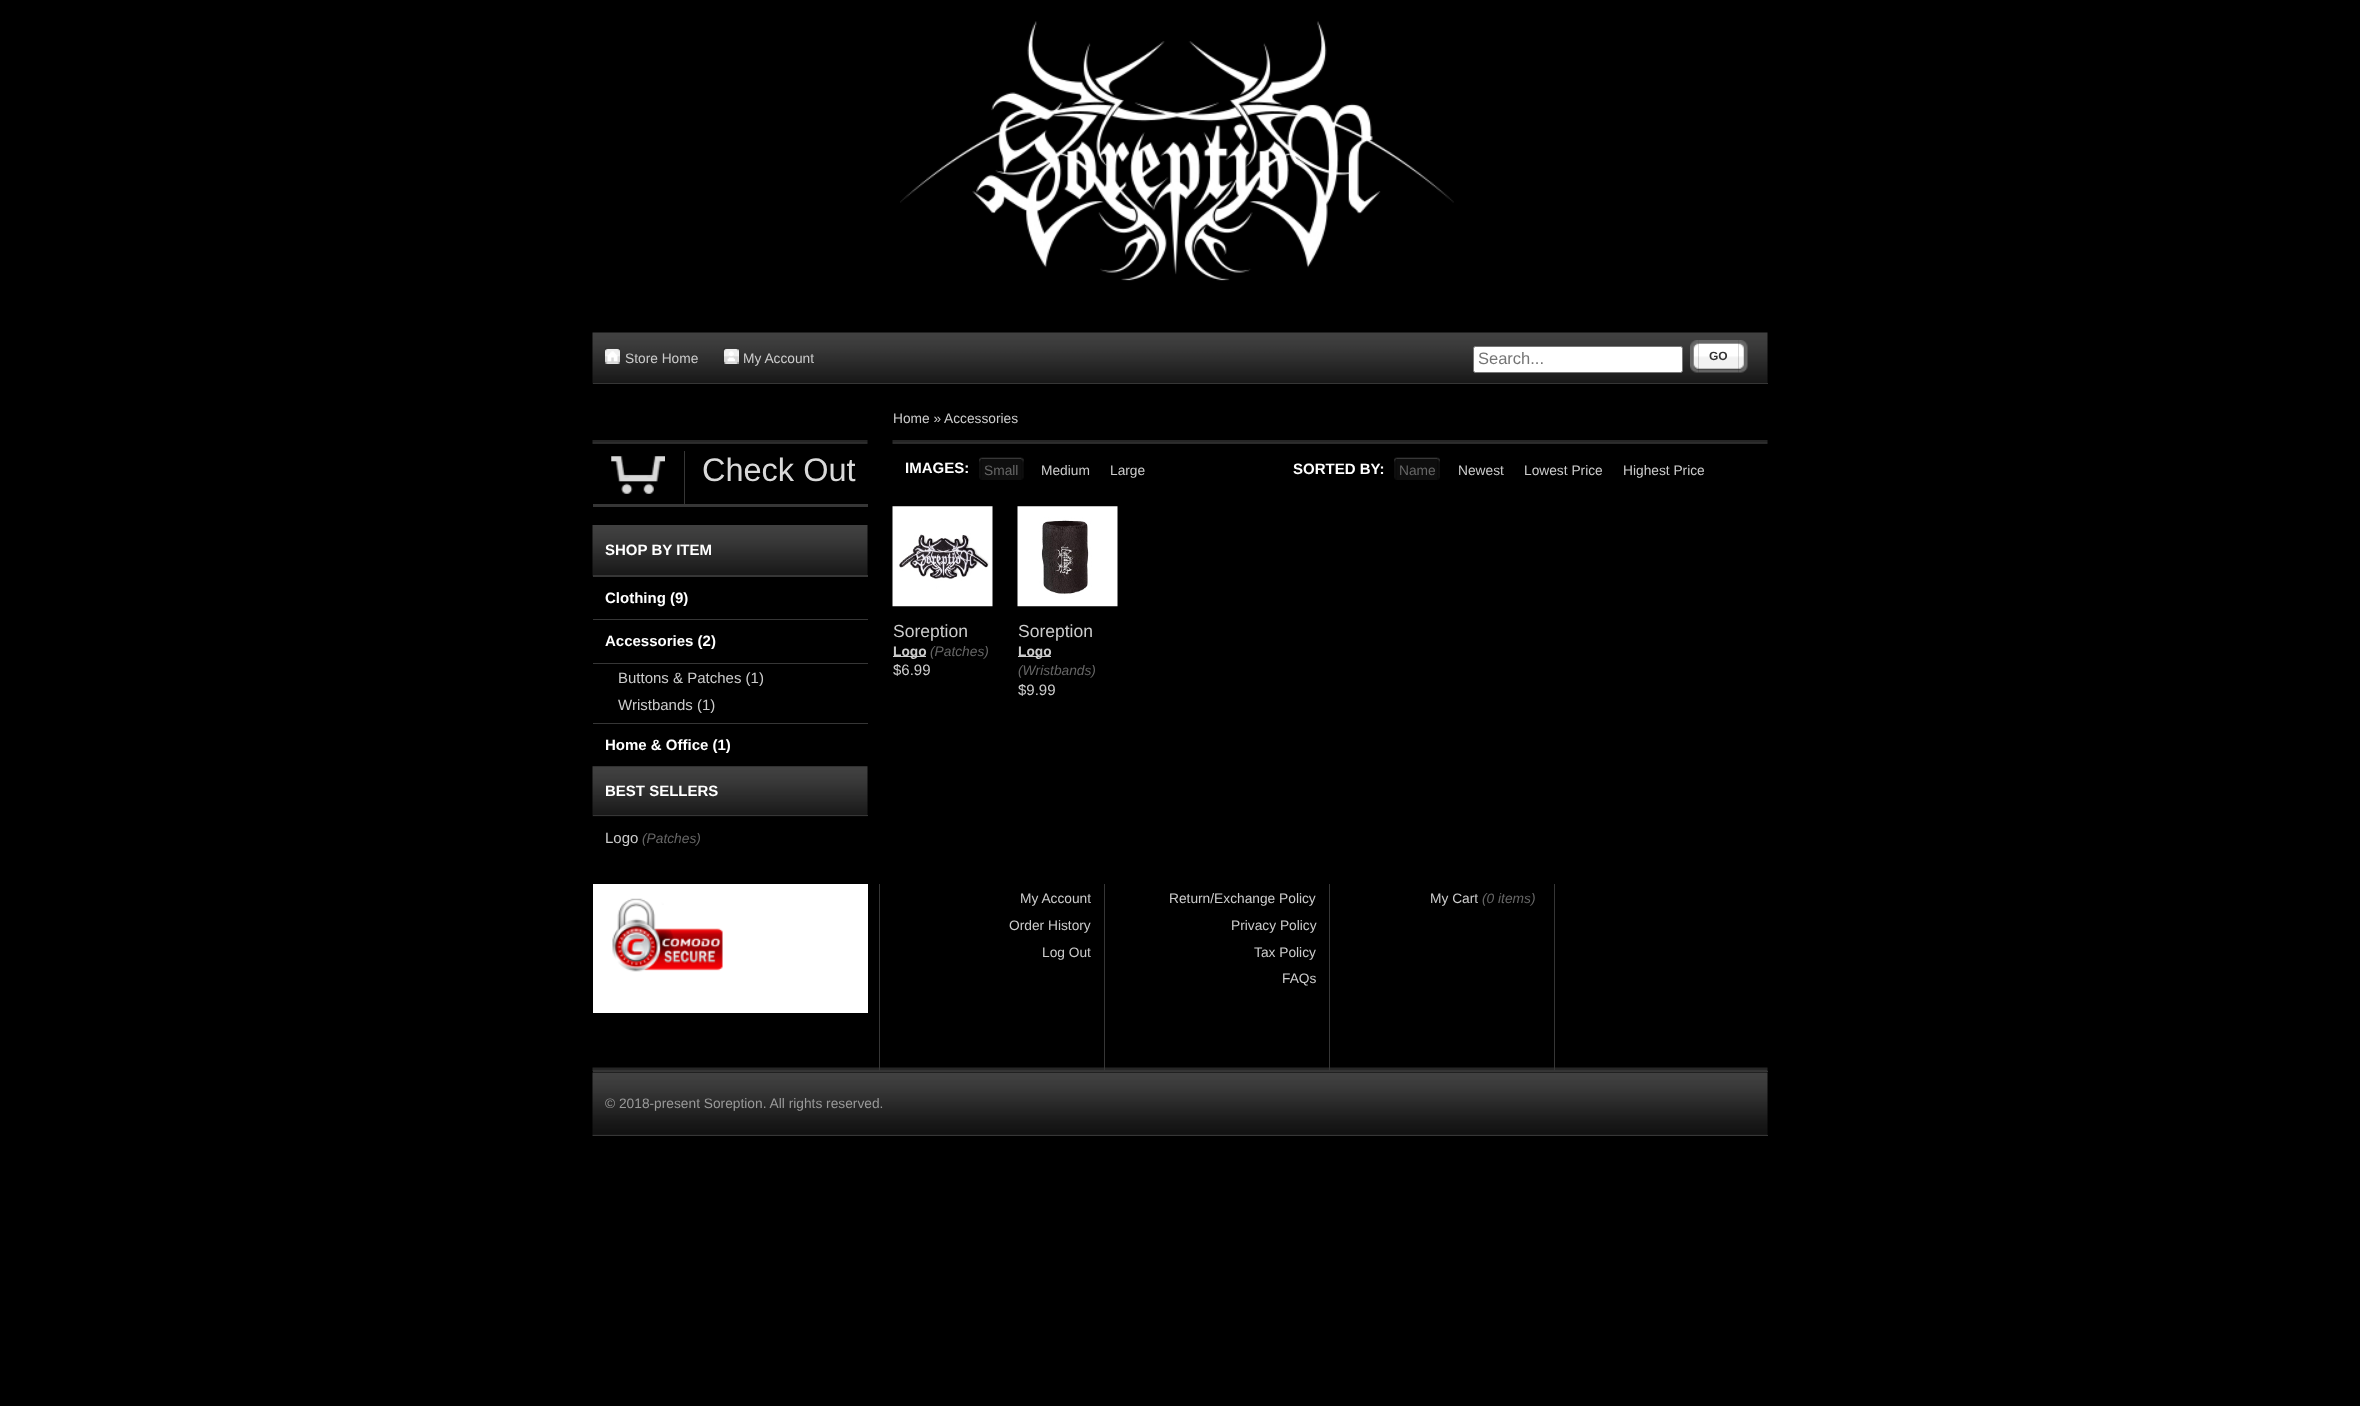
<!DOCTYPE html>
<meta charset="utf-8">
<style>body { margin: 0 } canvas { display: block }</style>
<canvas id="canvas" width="2360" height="1406"></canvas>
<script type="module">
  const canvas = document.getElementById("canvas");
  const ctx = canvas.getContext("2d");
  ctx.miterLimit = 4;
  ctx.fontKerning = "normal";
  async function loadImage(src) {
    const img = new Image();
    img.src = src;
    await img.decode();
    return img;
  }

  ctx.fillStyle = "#000000";
  ctx.fillRect(0, 0, 2360, 1406);
  ctx.drawImage(await loadImage("img1.png"), 900, 21, 554, 260);
  ctx.drawImage(await loadImage("img2.png"), 592, 332, 1176, 52);
  ctx.fillStyle = "#363636";
  ctx.fillRect(593, 383, 1175, 1);
  ctx.fillStyle = "#ffffff";
  ctx.fillRect(605, 349, 15, 15);
  ctx.drawImage(await loadImage("img3.png"), 605, 348, 15, 16);
  ctx.font = "13.75px Liberation Sans";
  ctx.fillStyle = "#cccccc";
  ctx.fillText("Store Home", 625, 363);
  ctx.fillStyle = "#ffffff";
  ctx.fillRect(724, 349, 15, 15);
  ctx.drawImage(await loadImage("img4.png"), 723, 348, 16, 16);
  ctx.fillStyle = "#cccccc";
  ctx.fillText("My Account", 743, 363);
  ctx.fillStyle = "#ffffff";
  ctx.beginPath();
  ctx.roundRect(1473.5, 346.5, 209, 26, 2);
  ctx.fill();
  ctx.strokeStyle = "#767676";
  ctx.stroke();
  ctx.font = "16.5px Liberation Sans";
  ctx.fillStyle = "#757575";
  ctx.fillText("Search...", 1478, 364);
  ctx.drawImage(await loadImage("img5.png"), 1690, 340, 9, 33);
  ctx.drawImage(await loadImage("img6.png"), 1698, 340, 41, 33);
  ctx.font = "bold 12px Liberation Sans";
  ctx.fillStyle = "#333333";
  ctx.fillText("GO", 1709, 360);
  ctx.drawImage(await loadImage("img7.png"), 1738, 340, 10, 33);
  ctx.drawImage(await loadImage("img8.png"), 592, 440, 276, 4);
  ctx.fillStyle = "#363636";
  ctx.fillRect(593, 504, 275, 3);
  ctx.drawImage(await loadImage("img9.png"), 611, 456, 54, 38);
  ctx.fillRect(684, 451, 1, 53);
  ctx.font = "32.5px Liberation Sans";
  ctx.fillStyle = "#d9d9d9";
  ctx.fillText("Check Out", 702, 481);
  ctx.drawImage(await loadImage("img10.png"), 592, 525, 276, 52);
  ctx.fillStyle = "#363636";
  ctx.fillRect(593, 575, 275, 2);
  ctx.font = "bold 15px Liberation Sans";
  ctx.fillStyle = "#ffffff";
  ctx.fillText("SHOP BY ITEM", 605, 555);
  ctx.fillStyle = "#363636";
  ctx.fillRect(593, 619, 275, 1);
  ctx.fillStyle = "#ffffff";
  ctx.fillText("Clothing (9)", 605, 603);
  ctx.fillStyle = "#363636";
  ctx.fillRect(593, 663, 275, 1);
  ctx.fillStyle = "#ffffff";
  ctx.fillText("Accessories (2)", 605, 646);
  ctx.font = "15px Liberation Sans";
  ctx.fillStyle = "#cccccc";
  ctx.fillText("Buttons & Patches (1)", 618, 683);
  ctx.fillText("Wristbands (1)", 618, 710);
  ctx.fillStyle = "#363636";
  ctx.fillRect(593, 723, 275, 1);
  ctx.font = "bold 15px Liberation Sans";
  ctx.fillStyle = "#ffffff";
  ctx.fillText("Home & Office (1)", 605, 750);
  ctx.drawImage(await loadImage("img11.png"), 592, 766, 276, 51);
  ctx.fillStyle = "#363636";
  ctx.fillRect(593, 815, 275, 1);
  ctx.fillStyle = "#ffffff";
  ctx.fillText("BEST SELLERS", 605, 796);
  ctx.font = "15px Liberation Sans";
  ctx.fillStyle = "#cccccc";
  ctx.fillText("Logo", 605, 843);
  ctx.font = "italic 13.75px Liberation Sans";
  ctx.fillStyle = "#666666";
  ctx.fillText("(Patches)", 642, 843);
  ctx.drawImage(await loadImage("img12.png"), 892, 440, 876, 4);
  ctx.font = "13.75px Liberation Sans";
  ctx.fillStyle = "#cccccc";
  ctx.fillText("Home »", 893, 423);
  ctx.fillText("Accessories", 944, 423);
  ctx.font = "bold 15px Liberation Sans";
  ctx.fillStyle = "#ffffff";
  ctx.fillText("IMAGES:", 905, 473);
  ctx.drawImage(await loadImage("img13.png"), 979, 457, 3, 23);
  ctx.drawImage(await loadImage("img14.png"), 981, 457, 41, 23);
  ctx.font = "13.75px Liberation Sans";
  ctx.fillStyle = "#666666";
  ctx.fillText("Small", 984, 475);
  ctx.drawImage(await loadImage("img15.png"), 1021, 457, 3, 23);
  ctx.fillStyle = "#cccccc";
  ctx.fillText("Medium", 1041, 475);
  ctx.fillText("Large", 1110, 475);
  ctx.font = "bold 15px Liberation Sans";
  ctx.fillStyle = "#ffffff";
  ctx.fillText("SORTED BY:", 1293, 474);
  ctx.drawImage(await loadImage("img13.png"), 1394, 457, 3, 23);
  ctx.drawImage(await loadImage("img16.png"), 1396, 457, 42, 23);
  ctx.font = "13.75px Liberation Sans";
  ctx.fillStyle = "#666666";
  ctx.fillText("Name", 1399, 475);
  ctx.drawImage(await loadImage("img17.png"), 1437, 457, 3, 23);
  ctx.fillStyle = "#cccccc";
  ctx.fillText("Newest", 1458, 475);
  ctx.fillText("Lowest Price", 1524, 475);
  ctx.fillText("Highest Price", 1623, 475);
  ctx.drawImage(await loadImage("img18.png"), 892, 506, 101, 101);
  ctx.font = "17.5px Liberation Sans";
  ctx.fillText("Soreption", 893, 637);
  ctx.fillRect(893, 656, 33, 1);
  ctx.font = "bold 13.75px Liberation Sans";
  ctx.fillText("Logo", 893, 656);
  ctx.font = "italic 13.75px Liberation Sans";
  ctx.fillStyle = "#666666";
  ctx.fillText("(Patches)", 930, 656);
  ctx.font = "15px Liberation Sans";
  ctx.fillStyle = "#cccccc";
  ctx.fillText("$6.99", 893, 675);
  ctx.drawImage(await loadImage("img19.png"), 1017, 506, 101, 101);
  ctx.font = "17.5px Liberation Sans";
  ctx.fillText("Soreption", 1018, 637);
  ctx.fillRect(1018, 656, 33, 1);
  ctx.font = "bold 13.75px Liberation Sans";
  ctx.fillText("Logo", 1018, 656);
  ctx.font = "italic 13.75px Liberation Sans";
  ctx.fillStyle = "#666666";
  ctx.fillText("(Wristbands)", 1018, 675);
  ctx.font = "15px Liberation Sans";
  ctx.fillStyle = "#cccccc";
  ctx.fillText("$9.99", 1018, 695);
  ctx.fillStyle = "#363636";
  ctx.fillRect(593, 1071, 1175, 1);
  ctx.drawImage(await loadImage("img20.png"), 592, 1067, 1176, 5);
  ctx.fillRect(879, 884, 1, 187);
  ctx.fillStyle = "#ffffff";
  ctx.fillRect(593, 884, 275, 129);
  ctx.drawImage(await loadImage("img21.png"), 612, 898, 111, 74);
  ctx.fillStyle = "#363636";
  ctx.fillRect(1104, 884, 1, 187);
  ctx.font = "13.75px Liberation Sans";
  ctx.fillStyle = "#cccccc";
  ctx.fillText("My Account", 1020, 903);
  ctx.fillText("Order History", 1009, 930);
  ctx.fillText("Log Out", 1042, 957);
  ctx.fillStyle = "#363636";
  ctx.fillRect(1329, 884, 1, 187);
  ctx.fillStyle = "#cccccc";
  ctx.fillText("Return/Exchange Policy", 1169, 903);
  ctx.fillText("Privacy Policy", 1231, 930);
  ctx.fillText("Tax Policy", 1254, 957);
  ctx.fillText("FAQs", 1282, 983);
  ctx.fillStyle = "#363636";
  ctx.fillRect(1554, 884, 1, 187);
  ctx.fillStyle = "#cccccc";
  ctx.fillText("My Cart", 1430, 903);
  ctx.font = "italic 13.75px Liberation Sans";
  ctx.fillStyle = "#666666";
  ctx.fillText("(0 items)", 1482, 903);
  ctx.drawImage(await loadImage("img22.png"), 592, 1072, 1176, 64);
  ctx.fillStyle = "#363636";
  ctx.fillRect(593, 1135, 1175, 1);
  ctx.font = "13.75px Liberation Sans";
  ctx.fillStyle = "#999999";
  ctx.fillText("© 2018-present Soreption. All rights reserved.", 605, 1108);
</script>
